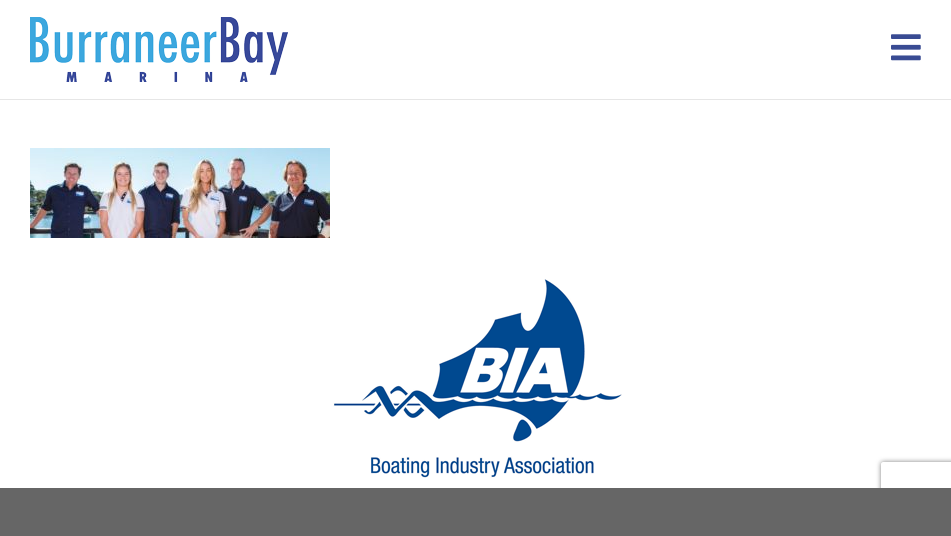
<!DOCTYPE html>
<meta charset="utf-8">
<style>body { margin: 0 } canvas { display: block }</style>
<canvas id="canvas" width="951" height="536"></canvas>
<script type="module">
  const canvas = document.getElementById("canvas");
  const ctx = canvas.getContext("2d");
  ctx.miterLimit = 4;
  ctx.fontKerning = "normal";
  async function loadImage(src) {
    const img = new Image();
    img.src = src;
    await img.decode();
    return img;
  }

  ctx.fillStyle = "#ffffff";
  ctx.fillRect(0, 0, 951, 536);
  ctx.fillStyle = "#e6e6e6";
  ctx.fillRect(0, 99, 951, 1);
  ctx.drawImage(await loadImage("img1.png"), 30, 17, 258, 65);
  ctx.drawImage(await loadImage("img2.png"), 891, 34, 30, 27);
  ctx.drawImage(await loadImage("img3.png"), 30, 148, 300, 90);
  ctx.drawImage(await loadImage("img4.png"), 333, 279, 289, 199);
  ctx.save();
  ctx.beginPath();
  ctx.moveTo(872, 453);
  ctx.lineTo(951, 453);
  ctx.lineTo(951, 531);
  ctx.lineTo(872, 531);
  ctx.closePath();
  ctx.moveTo(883, 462);
  ctx.lineTo(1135, 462);
  ctx.bezierCurveTo(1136, 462, 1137, 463, 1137, 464);
  ctx.lineTo(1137, 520);
  ctx.bezierCurveTo(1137, 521, 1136, 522, 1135, 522);
  ctx.lineTo(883, 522);
  ctx.bezierCurveTo(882, 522, 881, 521, 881, 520);
  ctx.lineTo(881, 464);
  ctx.bezierCurveTo(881, 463, 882, 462, 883, 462);
  ctx.closePath();
  ctx.clip("evenodd");
  ctx.fillStyle = "#808080";
  ctx.filter = "blur(2.5px)";
  ctx.beginPath();
  ctx.roundRect(881, 462, 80, 60, 2);
  ctx.fill();
  ctx.filter = "none";
  ctx.restore();
  ctx.fillStyle = "#666666";
  ctx.fillRect(0, 488, 951, 48);
</script>
